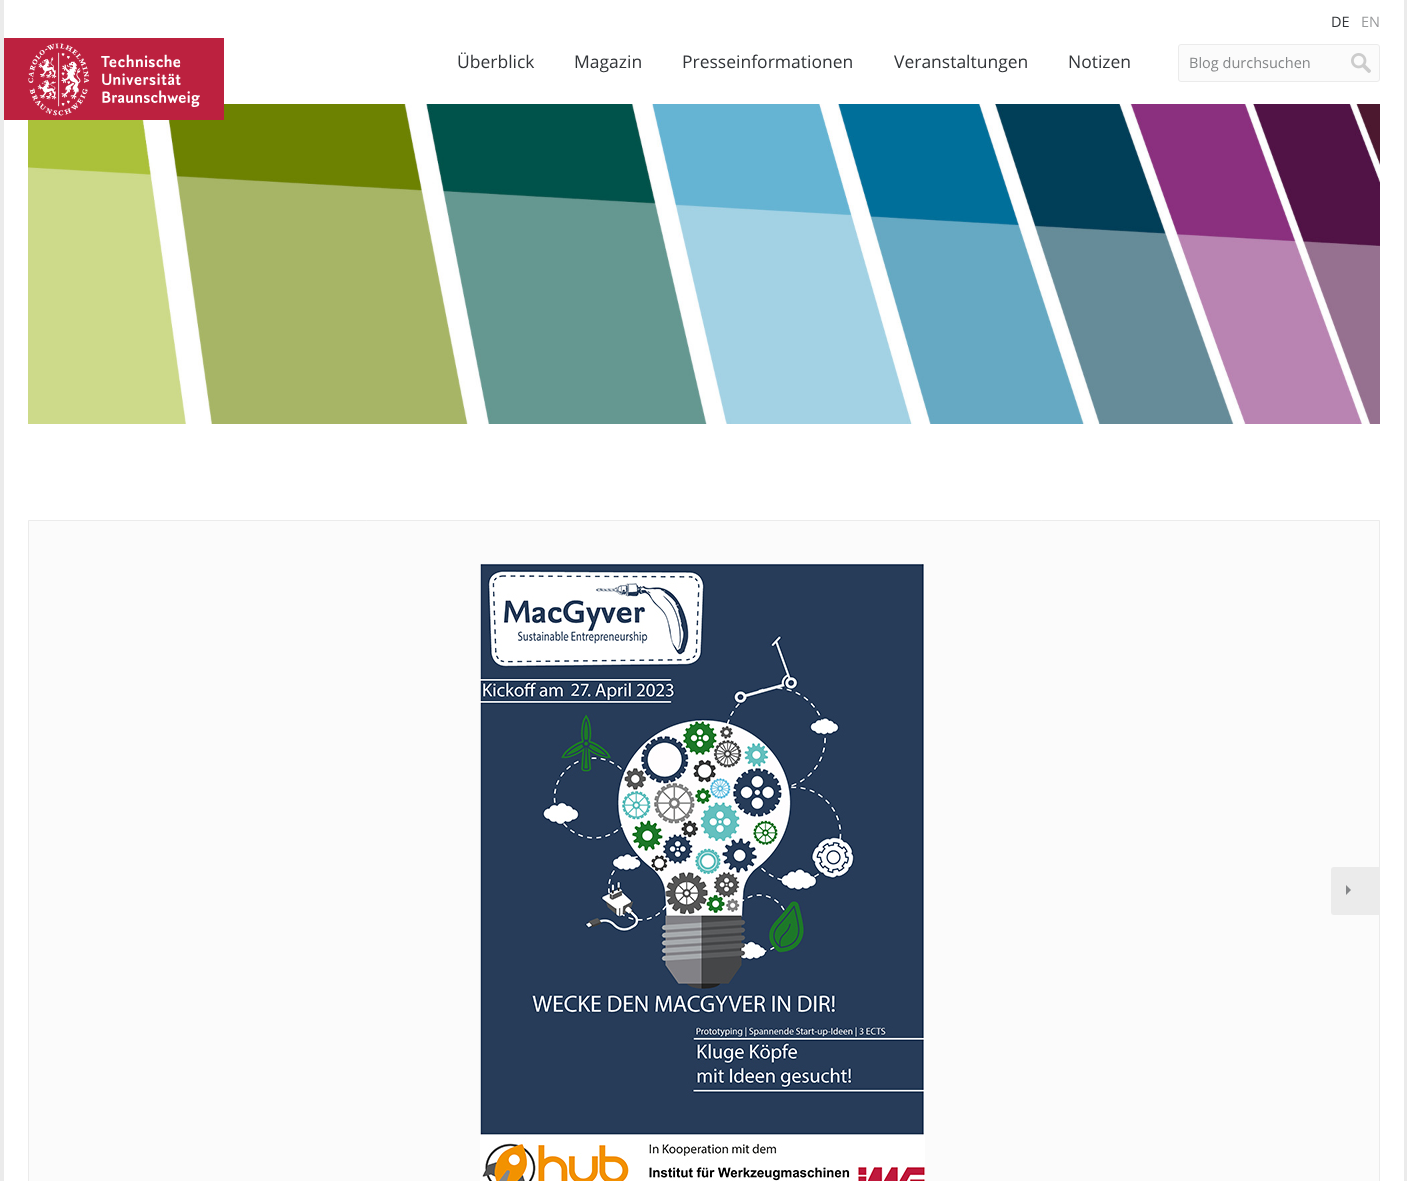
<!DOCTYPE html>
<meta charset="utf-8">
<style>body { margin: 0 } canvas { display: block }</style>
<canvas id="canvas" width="1407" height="1181"></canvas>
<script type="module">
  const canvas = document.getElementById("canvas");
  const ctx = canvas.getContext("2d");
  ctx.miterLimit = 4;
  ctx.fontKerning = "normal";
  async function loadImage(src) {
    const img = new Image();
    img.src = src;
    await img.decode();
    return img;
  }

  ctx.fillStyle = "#ebebeb";
  ctx.fillRect(0, 0, 1407, 1181);
  ctx.fillStyle = "#ffffff";
  ctx.fillRect(4, 0, 1400, 1181);
  ctx.font = "14.5px Open Sans";
  ctx.fillStyle = "#323539";
  ctx.fillText("DE", 1331, 27);
  ctx.fillStyle = "#999a9c";
  ctx.fillText("EN", 1361, 27);
  ctx.drawImage(await loadImage("img3.png"), 28, 104, 1352, 320);
  ctx.drawImage(await loadImage("img1.png"), 4, 38, 220, 82);
  ctx.font = "17.5px Open Sans";
  ctx.fillStyle = "#323539";
  ctx.fillText("Überblick", 457, 68);
  ctx.fillText("Magazin", 574, 68);
  ctx.fillText("Presseinformationen", 682, 68);
  ctx.fillText("Veranstaltungen", 894, 68);
  ctx.fillText("Notizen", 1068, 68);
  ctx.fillStyle = "#fbfbfb";
  ctx.beginPath();
  ctx.roundRect(1178.5, 44.5, 201, 37, 2.5);
  ctx.fill();
  ctx.strokeStyle = "#ebebeb";
  ctx.stroke();
  ctx.font = "14.5px Open Sans";
  ctx.fillStyle = "#848688";
  ctx.fillText("Blog durchsuchen", 1189, 68);
  ctx.drawImage(await loadImage("img2.png"), 1351, 53, 20, 20);
  ctx.fillStyle = "#fbfbfb";
  ctx.beginPath();
  ctx.rect(28.5, 520.5, 1351, 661);
  ctx.fill();
  ctx.stroke();
  ctx.drawImage(await loadImage("img4.png"), 480, 564, 445, 617);
  ctx.fillStyle = "#ebebeb";
  ctx.beginPath();
  ctx.roundRect(1331, 867, 48, 48, [3, 0, 0, 3]);
  ctx.fill();
  ctx.fillStyle = "#848688";
  ctx.beginPath();
  ctx.moveTo(1346, 895);
  ctx.lineTo(1346, 885);
  ctx.lineTo(1351, 890);
  ctx.closePath();
  ctx.fill();
</script>
